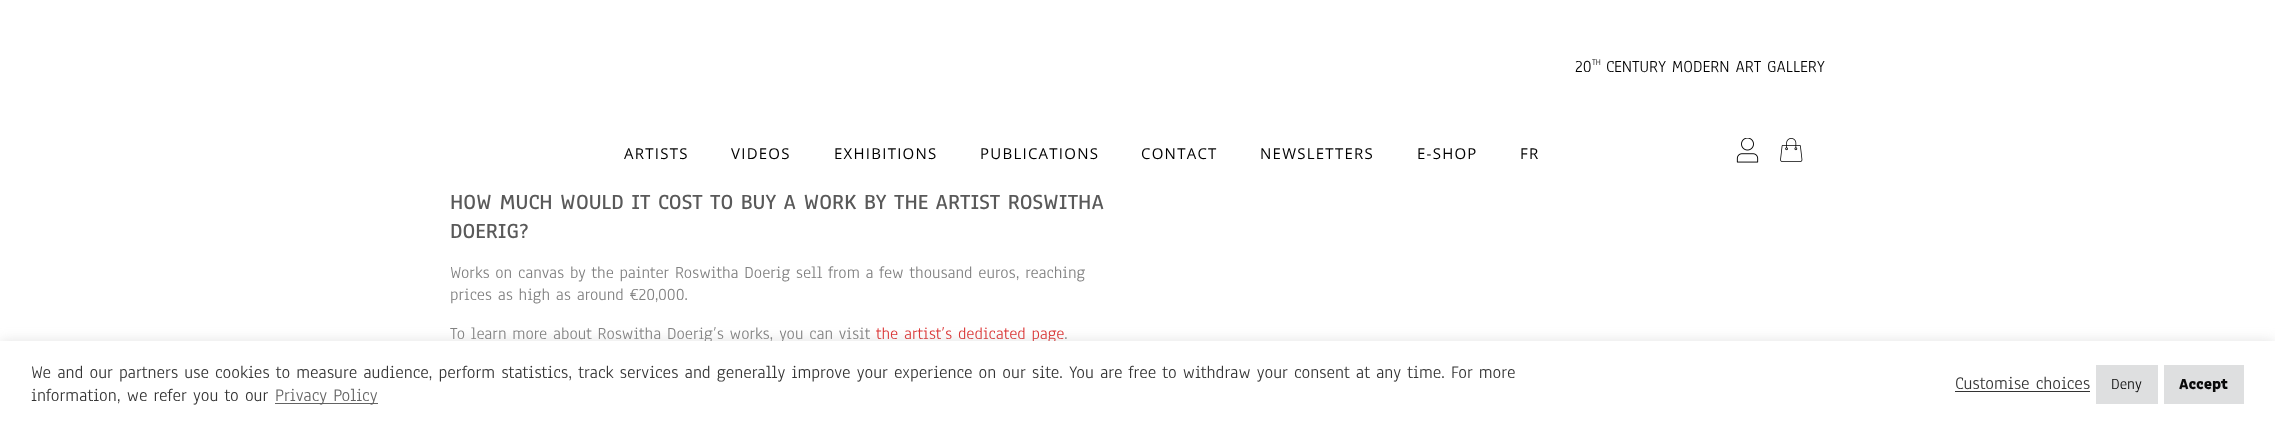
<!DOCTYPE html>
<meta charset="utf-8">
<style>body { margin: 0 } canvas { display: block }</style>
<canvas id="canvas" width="2275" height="427"></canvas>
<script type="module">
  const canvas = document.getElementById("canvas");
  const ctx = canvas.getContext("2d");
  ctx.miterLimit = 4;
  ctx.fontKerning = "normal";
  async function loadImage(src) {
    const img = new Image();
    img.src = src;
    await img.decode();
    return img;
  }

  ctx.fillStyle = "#ffffff";
  ctx.fillRect(0, 0, 2275, 427);
  ctx.font = "17.5px Anaheim";
  ctx.fillStyle = "#000000";
  ctx.fillText("20", 1575, 72);
  ctx.font = "9px Anaheim";
  ctx.fillText("TH", 1592, 65);
  ctx.font = "17.5px Anaheim";
  ctx.fillText("CENTURY MODERN ART GALLERY", 1606, 72);
  ctx.letterSpacing = "1.25px";
  ctx.font = "15px Open Sans";
  ctx.fillText("ARTISTS", 624, 159);
  ctx.fillText("VIDEOS", 731, 159);
  ctx.fillText("EXHIBITIONS", 834, 159);
  ctx.fillText("PUBLICATIONS", 980, 159);
  ctx.fillText("CONTACT", 1141, 159);
  ctx.fillText("NEWSLETTERS", 1260, 159);
  ctx.fillText("E-SHOP", 1417, 159);
  ctx.fillText("FR", 1520, 159);
  ctx.drawImage(await loadImage("img1.png"), 1736, 138, 23, 25);
  ctx.drawImage(await loadImage("img2.png"), 1780, 138, 23, 24);
  ctx.letterSpacing = "0px";
  ctx.font = "600 22.5px Anaheim";
  ctx.fillStyle = "#595959";
  ctx.fillText("HOW MUCH WOULD IT COST TO BUY A WORK BY THE ARTIST ROSWITHA", 450, 209);
  ctx.fillText("DOERIG?", 450, 238);
  ctx.font = "17.5px Anaheim";
  ctx.fillStyle = "#818181";
  ctx.fillText("Works on canvas by the painter Roswitha Doerig sell from a few thousand euros, reaching", 450, 278);
  ctx.fillText("prices as high as around €20,000.", 450, 300);
  ctx.fillText("To learn more about Roswitha Doerig’s works, you can visit", 450, 339);
  ctx.fillStyle = "#dd3333";
  ctx.fillText("the artist’s dedicated page", 876, 339);
  ctx.fillStyle = "#818181";
  ctx.fillText(".", 1064, 339);
  ctx.fillStyle = "rgba(172, 171, 171, 0.3)";
  ctx.filter = "blur(6px)";
  ctx.beginPath();
  ctx.rect(0, 340, 2275, 86);
  ctx.fill();
  ctx.filter = "none";
  ctx.fillStyle = "#ffffff";
  ctx.fillRect(0, 341, 2275, 86);
  ctx.font = "18.33px Anaheim";
  ctx.fillStyle = "#333333";
  ctx.fillText("We and our partners use cookies to measure audience, perform statistics, track services and generally improve your experience on our site. You are free to withdraw your consent at any time. For more", 31, 378);
  ctx.fillText("information, we refer you to our", 31, 401);
  ctx.fillStyle = "#636363";
  ctx.fillRect(275, 403, 103, 1);
  ctx.fillText("Privacy Policy", 275, 401);
  ctx.fillStyle = "#333333";
  ctx.fillText("Customise choices", 1955, 389);
  ctx.fillRect(1955, 391, 135, 1);
  ctx.fillStyle = "#dedfe0";
  ctx.fillRect(2096, 365, 62, 39);
  ctx.font = "16px Anaheim";
  ctx.fillStyle = "#0a0a0a";
  ctx.fillText("Deny", 2111, 389);
  ctx.fillStyle = "#dedfe0";
  ctx.fillRect(2164, 365, 80, 39);
  ctx.font = "800 16px Anaheim";
  ctx.fillStyle = "#0a0a0a";
  ctx.fillText("Accept", 2179, 389);
</script>
